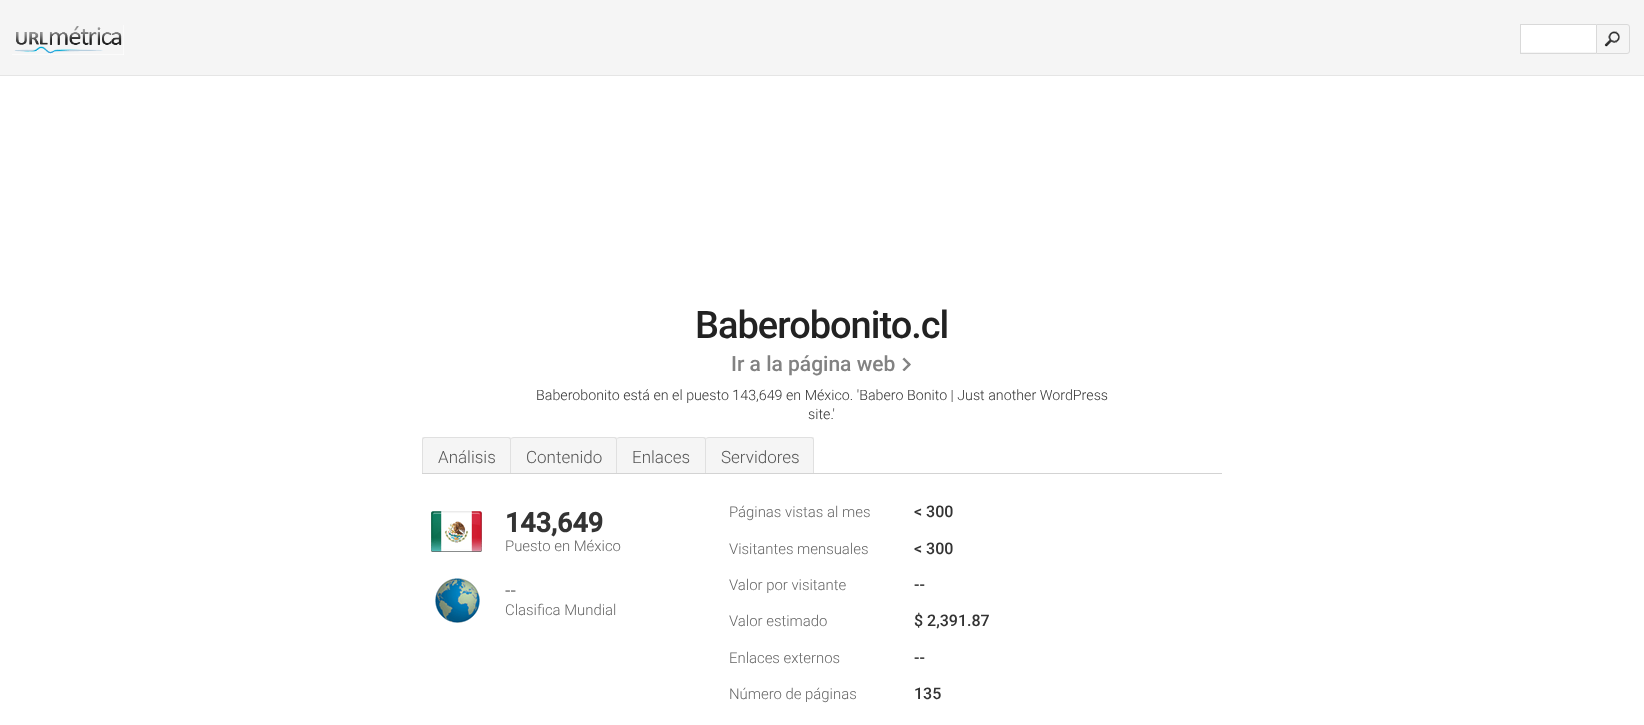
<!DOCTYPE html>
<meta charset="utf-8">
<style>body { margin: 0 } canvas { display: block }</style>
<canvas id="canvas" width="1644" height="725"></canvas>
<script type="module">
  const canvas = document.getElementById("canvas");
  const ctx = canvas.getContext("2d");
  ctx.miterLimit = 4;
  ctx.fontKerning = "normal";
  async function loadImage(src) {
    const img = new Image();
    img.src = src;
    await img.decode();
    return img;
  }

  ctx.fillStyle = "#ffffff";
  ctx.fillRect(0, 0, 1644, 725);
  ctx.fillStyle = "#f5f5f5";
  ctx.fillRect(0, 0, 1644, 75);
  ctx.fillStyle = "#e5e5e5";
  ctx.fillRect(0, 75, 1644, 1);
  ctx.drawImage(await loadImage("img1.png"), 12, 25, 112, 30);
  ctx.fillStyle = "#d9d9d9";
  ctx.fillRect(1520, 24, 76, 1);
  ctx.fillRect(1520, 53, 76, 1);
  ctx.fillRect(1520, 24, 1, 30);
  ctx.fillStyle = "#ffffff";
  ctx.fillRect(1521, 25, 75, 27);
  ctx.drawImage(await loadImage("img2.png"), 1604, 31, 16, 16);
  ctx.beginPath();
  ctx.roundRect(1596.5, 24.5, 33, 29, [0, 2.5, 2.5, 0]);
  ctx.strokeStyle = "#d9d9d9";
  ctx.stroke();
  ctx.letterSpacing = "-1px";
  ctx.font = "500 38px Roboto";
  ctx.fillStyle = "#222222";
  ctx.fillText("Baberobonito.cl", 695, 338);
  ctx.letterSpacing = "0px";
  ctx.font = "500 21px Roboto";
  ctx.fillStyle = "#828282";
  ctx.fillText("Ir a la página web", 731, 371);
  ctx.drawImage(await loadImage("img3.png"), 902, 357, 9, 14);
  ctx.font = "300 14.25px Roboto";
  ctx.fillStyle = "#333333";
  ctx.fillText("Baberobonito está en el puesto 143,649 en México. 'Babero Bonito | Just another WordPress", 536, 400);
  ctx.fillText("site.'", 808, 419);
  ctx.fillStyle = "#d3d3d3";
  ctx.fillRect(422, 473, 800, 1);
  ctx.fillStyle = "#f5f5f5";
  ctx.fillRect(422, 437, 392, 36);
  ctx.fillStyle = "#e0e0e0";
  ctx.beginPath();
  ctx.moveTo(425, 437);
  ctx.lineTo(508, 437);
  ctx.bezierCurveTo(510, 437, 511, 438, 511, 440);
  ctx.lineTo(511, 473);
  ctx.lineTo(422, 473);
  ctx.lineTo(422, 440);
  ctx.bezierCurveTo(422, 438, 423, 437, 425, 437);
  ctx.closePath();
  ctx.moveTo(425, 438);
  ctx.lineTo(508, 438);
  ctx.bezierCurveTo(509, 438, 510, 439, 510, 440);
  ctx.lineTo(510, 473);
  ctx.lineTo(423, 473);
  ctx.lineTo(423, 440);
  ctx.bezierCurveTo(423, 439, 424, 438, 425, 438);
  ctx.closePath();
  ctx.fill("evenodd");
  ctx.font = "300 17px Roboto";
  ctx.fillStyle = "#555555";
  ctx.fillText("Análisis", 438, 463);
  ctx.fillStyle = "#e0e0e0";
  ctx.beginPath();
  ctx.moveTo(514, 437);
  ctx.lineTo(614, 437);
  ctx.bezierCurveTo(616, 437, 617, 438, 617, 440);
  ctx.lineTo(617, 473);
  ctx.lineTo(511, 473);
  ctx.lineTo(511, 440);
  ctx.bezierCurveTo(511, 438, 512, 437, 514, 437);
  ctx.closePath();
  ctx.moveTo(514, 438);
  ctx.lineTo(614, 438);
  ctx.bezierCurveTo(615, 438, 616, 439, 616, 440);
  ctx.lineTo(616, 473);
  ctx.lineTo(511, 473);
  ctx.lineTo(511, 440);
  ctx.bezierCurveTo(511, 439, 512, 438, 514, 438);
  ctx.closePath();
  ctx.fill("evenodd");
  ctx.fillStyle = "#555555";
  ctx.fillText("Contenido", 526, 463);
  ctx.fillStyle = "#e0e0e0";
  ctx.beginPath();
  ctx.moveTo(620, 437);
  ctx.lineTo(703, 437);
  ctx.bezierCurveTo(705, 437, 706, 438, 706, 440);
  ctx.lineTo(706, 473);
  ctx.lineTo(617, 473);
  ctx.lineTo(617, 440);
  ctx.bezierCurveTo(617, 438, 618, 437, 620, 437);
  ctx.closePath();
  ctx.moveTo(620, 438);
  ctx.lineTo(703, 438);
  ctx.bezierCurveTo(704, 438, 705, 439, 705, 440);
  ctx.lineTo(705, 473);
  ctx.lineTo(617, 473);
  ctx.lineTo(617, 440);
  ctx.bezierCurveTo(617, 439, 618, 438, 620, 438);
  ctx.closePath();
  ctx.fill("evenodd");
  ctx.fillStyle = "#555555";
  ctx.fillText("Enlaces", 632, 463);
  ctx.fillStyle = "#e0e0e0";
  ctx.beginPath();
  ctx.moveTo(709, 437);
  ctx.lineTo(811, 437);
  ctx.bezierCurveTo(813, 437, 814, 438, 814, 440);
  ctx.lineTo(814, 473);
  ctx.lineTo(706, 473);
  ctx.lineTo(706, 440);
  ctx.bezierCurveTo(706, 438, 707, 437, 709, 437);
  ctx.closePath();
  ctx.moveTo(709, 438);
  ctx.lineTo(811, 438);
  ctx.bezierCurveTo(812, 438, 813, 439, 813, 440);
  ctx.lineTo(813, 473);
  ctx.lineTo(706, 473);
  ctx.lineTo(706, 440);
  ctx.bezierCurveTo(706, 439, 707, 438, 709, 438);
  ctx.closePath();
  ctx.fill("evenodd");
  ctx.fillStyle = "#555555";
  ctx.fillText("Servidores", 721, 463);
  ctx.drawImage(await loadImage("img4.png"), 431, 511, 51, 41);
  ctx.font = "bold 27px Roboto";
  ctx.fillStyle = "#333333";
  ctx.fillText("143,649", 505, 532);
  ctx.font = "300 14.9px Roboto";
  ctx.fillStyle = "#656565";
  ctx.fillText("Puesto en México", 505, 551);
  ctx.drawImage(await loadImage("img5.png"), 435, 578, 45, 45);
  ctx.font = "300 19px Roboto";
  ctx.fillStyle = "#333333";
  ctx.fillText("--", 505, 597);
  ctx.font = "300 14.9px Roboto";
  ctx.fillStyle = "#656565";
  ctx.fillText("Clasifica Mundial", 505, 615);
  ctx.fillText("Páginas vistas al mes", 729, 517);
  ctx.font = "500 16px Roboto";
  ctx.fillStyle = "#333333";
  ctx.fillText("< 300", 914, 517);
  ctx.font = "300 14.9px Roboto";
  ctx.fillStyle = "#656565";
  ctx.fillText("Visitantes mensuales", 729, 554);
  ctx.font = "500 16px Roboto";
  ctx.fillStyle = "#333333";
  ctx.fillText("< 300", 914, 554);
  ctx.font = "300 14.9px Roboto";
  ctx.fillStyle = "#656565";
  ctx.fillText("Valor por visitante", 729, 590);
  ctx.font = "500 16px Roboto";
  ctx.fillStyle = "#333333";
  ctx.fillText("--", 914, 590);
  ctx.font = "300 14.9px Roboto";
  ctx.fillStyle = "#656565";
  ctx.fillText("Valor estimado", 729, 626);
  ctx.font = "500 16px Roboto";
  ctx.fillStyle = "#333333";
  ctx.fillText("$ 2,391.87", 914, 626);
  ctx.font = "300 14.9px Roboto";
  ctx.fillStyle = "#656565";
  ctx.fillText("Enlaces externos", 729, 663);
  ctx.font = "500 16px Roboto";
  ctx.fillStyle = "#333333";
  ctx.fillText("--", 914, 663);
  ctx.font = "300 14.9px Roboto";
  ctx.fillStyle = "#656565";
  ctx.fillText("Número de páginas", 729, 699);
  ctx.font = "500 16px Roboto";
  ctx.fillStyle = "#333333";
  ctx.fillText("135", 914, 699);
</script>
